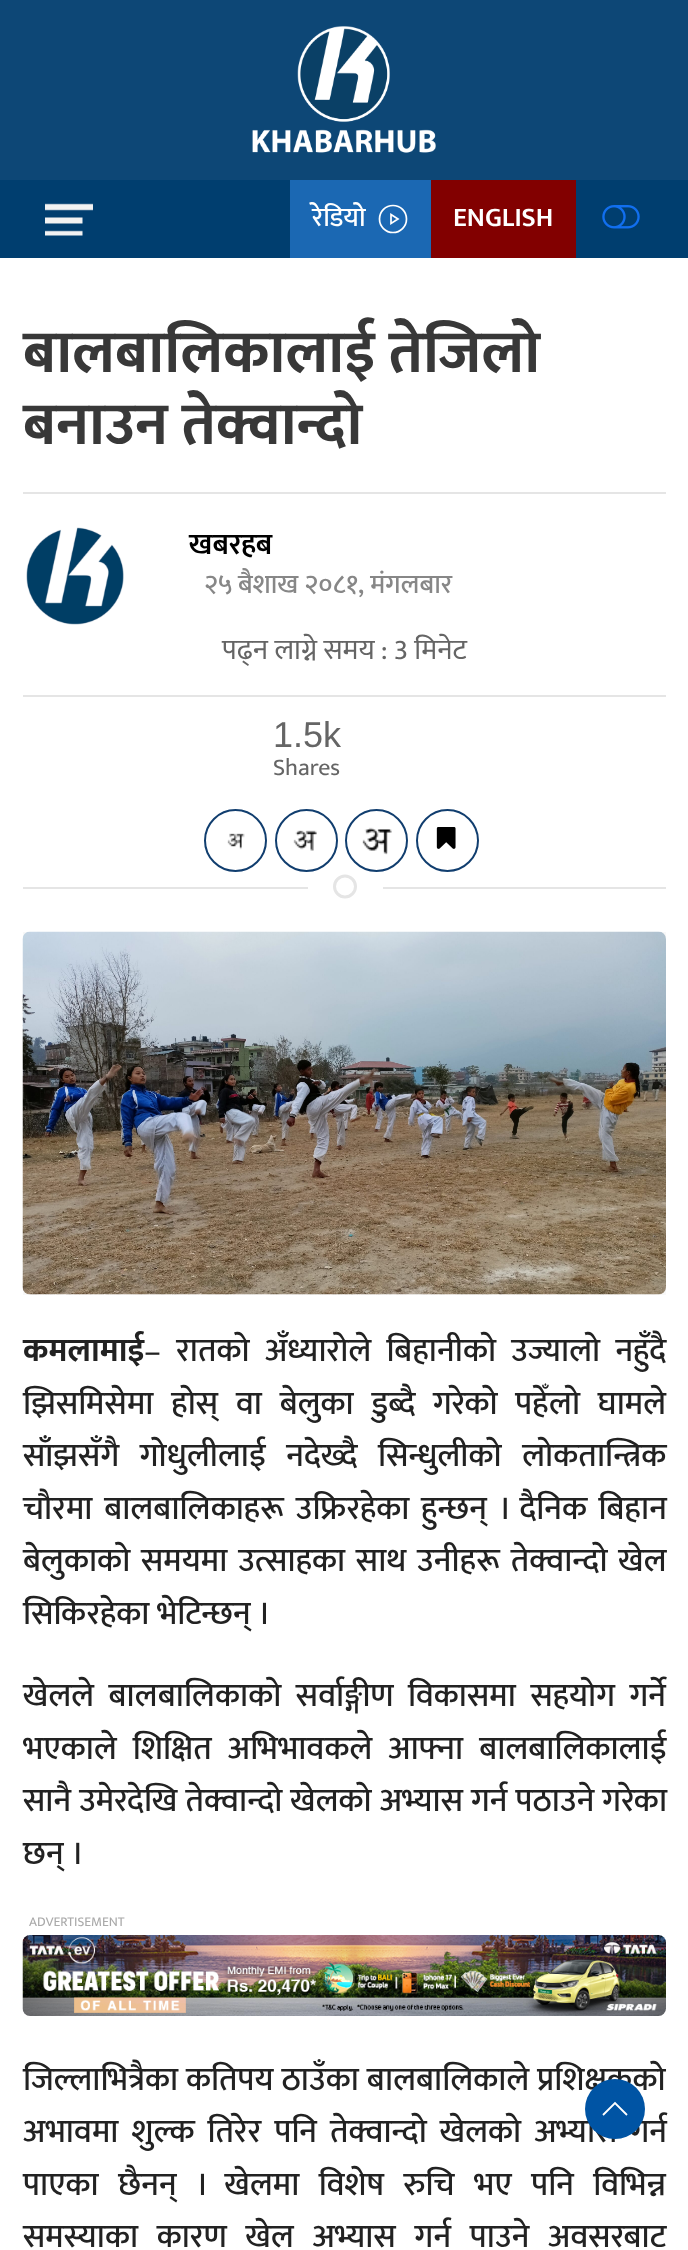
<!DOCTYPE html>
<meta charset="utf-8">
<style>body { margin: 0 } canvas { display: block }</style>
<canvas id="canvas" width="688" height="2250"></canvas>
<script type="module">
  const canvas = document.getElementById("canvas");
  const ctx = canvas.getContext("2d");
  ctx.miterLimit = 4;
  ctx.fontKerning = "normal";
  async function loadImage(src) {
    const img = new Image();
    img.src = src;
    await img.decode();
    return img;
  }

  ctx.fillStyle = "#ffffff";
  ctx.fillRect(0, 0, 688, 2250);
  ctx.fillStyle = "#0d4776";
  ctx.fillRect(0, 0, 688, 180);
  ctx.drawImage(await loadImage("img1.png"), 252, 26, 184, 127);
  ctx.fillStyle = "#003e6f";
  ctx.fillRect(0, 180, 688, 78);
  ctx.drawImage(await loadImage("img2.png"), 45, 203, 48, 33);
  ctx.fillStyle = "#1b68b3";
  ctx.fillRect(290, 180, 141, 78);
  ctx.font = "500 27px Mukta";
  ctx.fillStyle = "#ffffff";
  ctx.fillText("रेडियो", 312, 226);
  ctx.beginPath();
  ctx.moveTo(391, 214.5);
  ctx.lineTo(398, 219);
  ctx.lineTo(391, 223.5);
  ctx.closePath();
  ctx.strokeStyle = "#ffffff";
  ctx.lineWidth = 1.7;
  ctx.stroke();
  ctx.beginPath();
  ctx.arc(393, 219, 13.5, 0, Math.PI * 2);
  ctx.stroke();
  ctx.fillStyle = "#820000";
  ctx.fillRect(431, 180, 145, 78);
  ctx.font = "600 27px Mukta";
  ctx.fillStyle = "#ffffff";
  ctx.fillText("ENGLISH", 453, 226);
  ctx.drawImage(await loadImage("img3.png"), 602, 205, 38, 24);
  ctx.font = "bold 60px Mukta";
  ctx.fillStyle = "#383838";
  ctx.fillText("बालबालिकालाई तेजिलो", 23, 372);
  ctx.fillText("बनाउन तेक्वान्दो", 23, 444);
  ctx.fillStyle = "#e5e5e5";
  ctx.fillRect(23, 492, 643, 2);
  ctx.drawImage(await loadImage("img4.png"), 26, 527, 98, 98);
  ctx.font = "600 30px Mukta";
  ctx.fillStyle = "#000000";
  ctx.fillText("खबरहब", 189, 554);
  ctx.font = "500 27px Mukta";
  ctx.fillStyle = "#878787";
  ctx.fillText("२५ बैशाख २०८१, मंगलबार", 204, 593);
  ctx.font = "28.75px Mukta";
  ctx.fillStyle = "#656565";
  ctx.fillText("पढ्न लाग्ने समय : 3 मिनेट", 222, 659);
  ctx.fillStyle = "#e5e5e5";
  ctx.fillRect(23, 695, 643, 2);
  ctx.font = "36px Liberation Sans";
  ctx.fillStyle = "#656565";
  ctx.fillText("1.5k", 273, 747);
  ctx.font = "24px Mukta";
  ctx.fillText("Shares", 273, 775);
  ctx.beginPath();
  ctx.arc(235.5, 840.5, 30.5, 0, Math.PI * 2);
  ctx.strokeStyle = "#113e6f";
  ctx.lineWidth = 2;
  ctx.stroke();
  ctx.drawImage(await loadImage("img5.png"), 227, 833, 18, 17);
  ctx.beginPath();
  ctx.arc(306.5, 840.5, 30.5, 0, Math.PI * 2);
  ctx.stroke();
  ctx.drawImage(await loadImage("img6.png"), 293, 830, 24, 21);
  ctx.beginPath();
  ctx.arc(376.5, 840.5, 30.5, 0, Math.PI * 2);
  ctx.stroke();
  ctx.drawImage(await loadImage("img7.png"), 362, 827, 30, 28);
  ctx.beginPath();
  ctx.arc(447.5, 840.5, 30.5, 0, Math.PI * 2);
  ctx.stroke();
  ctx.drawImage(await loadImage("img8.png"), 436, 827, 20, 22);
  ctx.beginPath();
  ctx.arc(345, 886.5, 10.5, 0, Math.PI * 2);
  ctx.strokeStyle = "#e5e5e5";
  ctx.lineWidth = 3;
  ctx.stroke();
  ctx.fillStyle = "#e5e5e5";
  ctx.fillRect(23, 887, 285, 2);
  ctx.fillRect(383, 887, 283, 2);
  ctx.fillStyle = "#f8f8f8";
  ctx.fillRect(23, 932, 643, 363);
  ctx.drawImage(await loadImage("img9.png"), 22, 931, 644, 364);
  ctx.font = "bold 33px Mukta";
  ctx.fillStyle = "#222222";
  ctx.fillText("कमलामाई", 23, 1361);
  ctx.wordSpacing = "7.75px";
  ctx.font = "500 33px Mukta";
  ctx.fillText("– रातको अँध्यारोले बिहानीको उज्यालो नहुँदै", 144, 1361);
  ctx.wordSpacing = "10.25px";
  ctx.fillText("झिसमिसेमा होस् वा बेलुका डुब्दै गरेको पहेँलो घामले", 23, 1414);
  ctx.wordSpacing = "13px";
  ctx.fillText("साँझसँगै गोधुलीलाई नदेख्दै सिन्धुलीको लोकतान्त्रिक", 23, 1466);
  ctx.wordSpacing = "4.25px";
  ctx.fillText("चौरमा बालबालिकाहरू उफ्रिरहेका हुन्छन् । दैनिक बिहान", 23, 1519);
  ctx.wordSpacing = "3.25px";
  ctx.fillText("बेलुकाको समयमा उत्साहका साथ उनीहरू तेक्वान्दो खेल", 23, 1571);
  ctx.wordSpacing = "0px";
  ctx.fillText("सिकिरहेका भेटिन्छन् ।", 23, 1624);
  ctx.wordSpacing = "7px";
  ctx.fillText("खेलले बालबालिकाको सर्वाङ्गीण विकासमा सहयोग गर्ने", 23, 1706);
  ctx.wordSpacing = "8.5px";
  ctx.fillText("भएकाले शिक्षित अभिभावकले आफ्ना बालबालिकालाई", 23, 1759);
  ctx.wordSpacing = "0.5px";
  ctx.fillText("सानै उमेरदेखि तेक्वान्दो खेलको अभ्यास गर्न पठाउने गरेका", 23, 1811);
  ctx.wordSpacing = "0px";
  ctx.fillText("छन् ।", 23, 1864);
  ctx.font = "13.5px Mukta";
  ctx.fillStyle = "#aaaaaa";
  ctx.fillText("ADVERTISEMENT", 29, 1926);
  ctx.drawImage(await loadImage("img10.png"), 22, 1935, 644, 81);
  ctx.wordSpacing = "0.5px";
  ctx.font = "500 33px Mukta";
  ctx.fillStyle = "#222222";
  ctx.fillText("जिल्लाभित्रैका कतिपय ठाउँका बालबालिकाले प्रशिक्षकको", 23, 2090);
  ctx.wordSpacing = "5.5px";
  ctx.fillText("अभावमा शुल्क तिरेर पनि तेक्वान्दो खेलको अभ्यास गर्न", 23, 2142);
  ctx.wordSpacing = "12px";
  ctx.fillText("पाएका छैनन् । खेलमा विशेष रुचि भए पनि विभिन्न", 23, 2195);
  ctx.wordSpacing = "11.25px";
  ctx.fillText("समस्याका कारण खेल अभ्यास गर्न पाउने अवसरबाट", 23, 2247);
  ctx.fillStyle = "#0054a4";
  ctx.beginPath();
  ctx.arc(615, 2109, 30, 0, Math.PI * 2);
  ctx.fill();
  ctx.beginPath();
  ctx.moveTo(603, 2115);
  ctx.lineTo(615, 2103);
  ctx.lineTo(627, 2115);
  ctx.strokeStyle = "#ffffff";
  ctx.lineWidth = 1.8;
  ctx.stroke();
</script>
